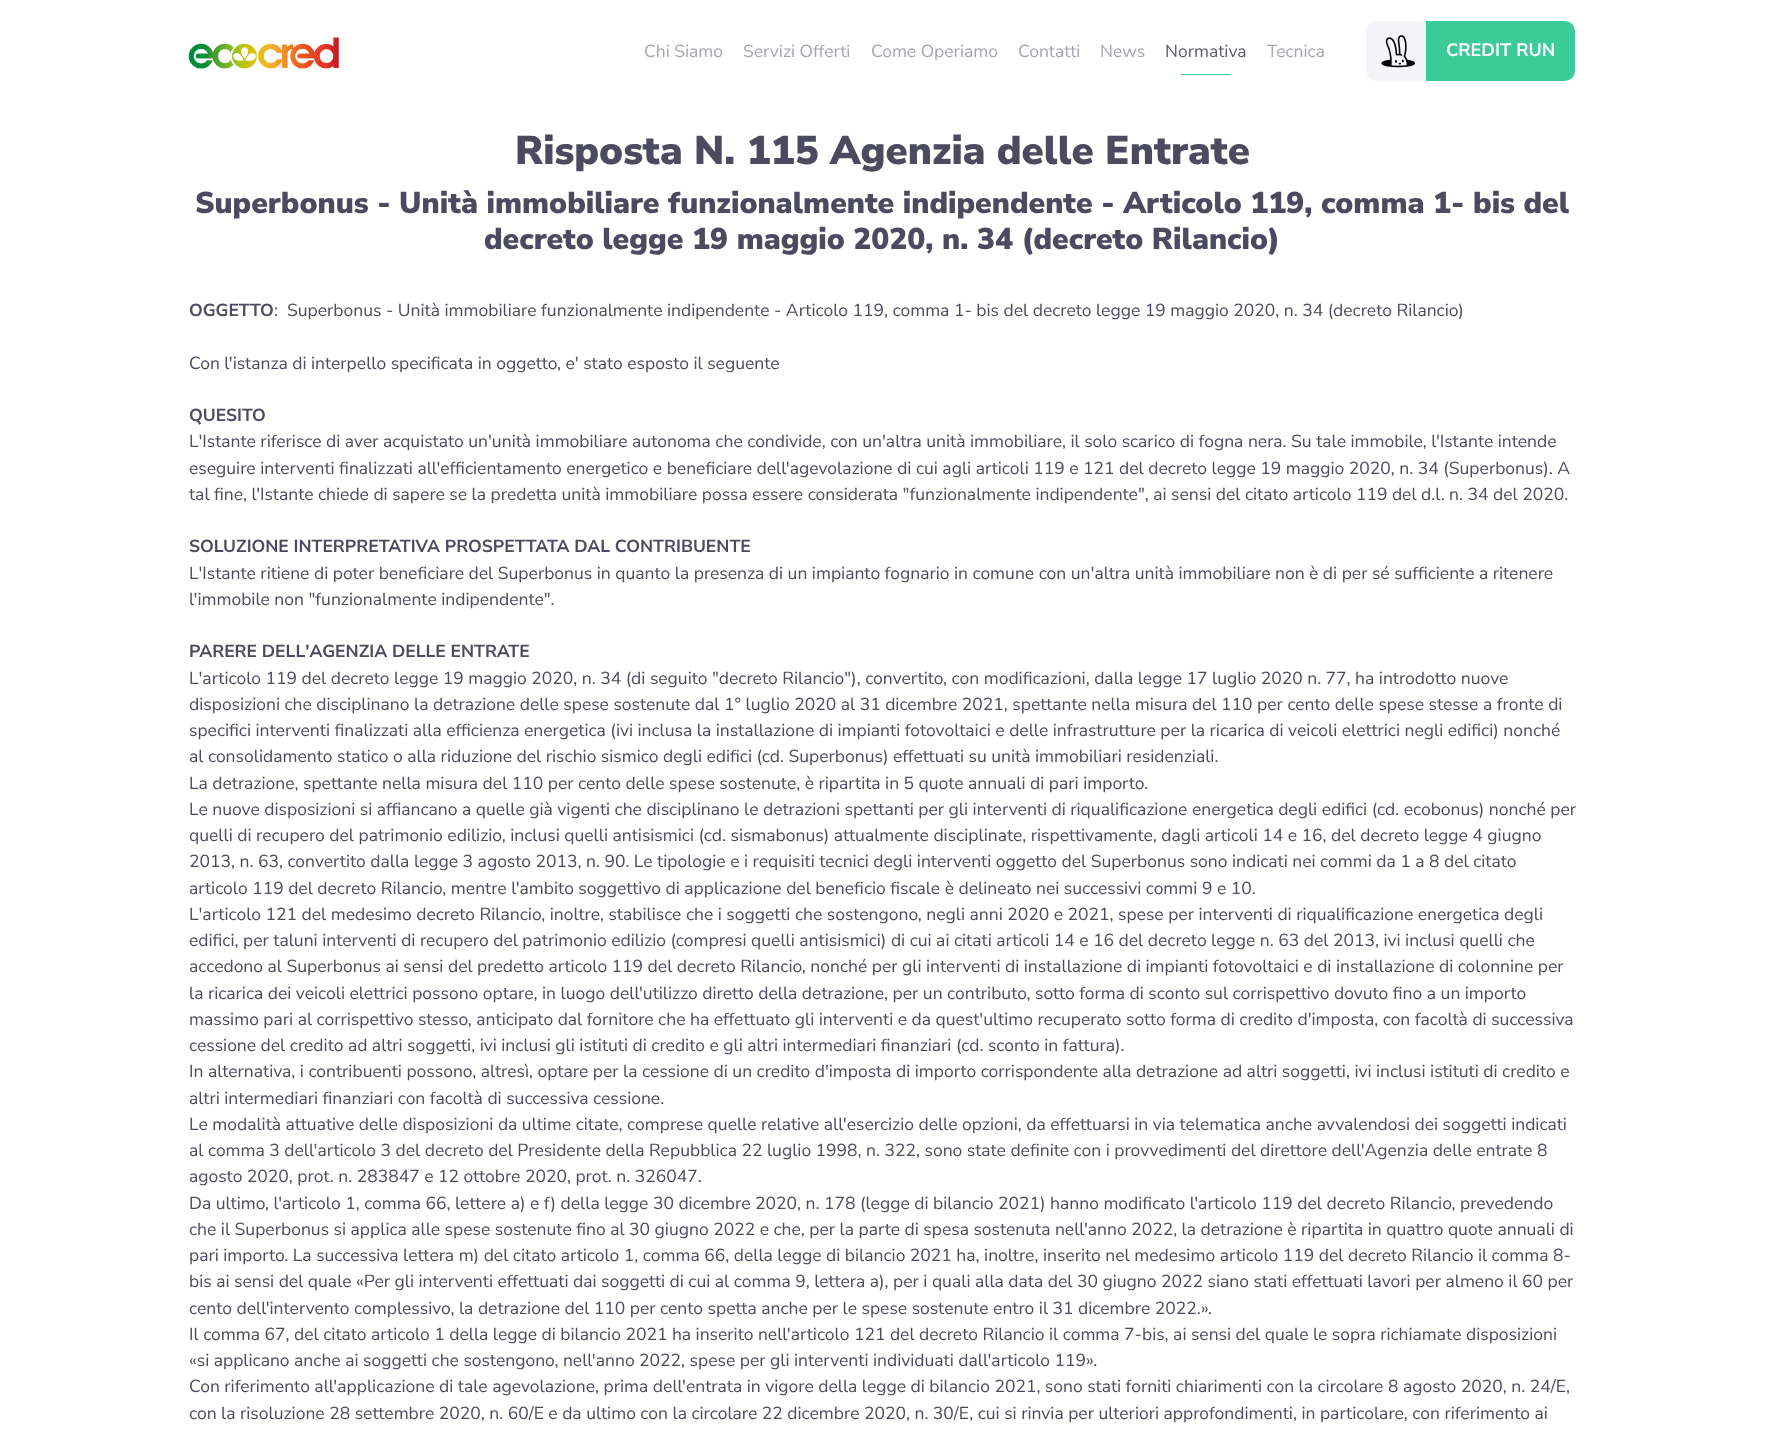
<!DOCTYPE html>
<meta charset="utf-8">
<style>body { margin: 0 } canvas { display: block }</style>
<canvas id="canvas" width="1765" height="1434"></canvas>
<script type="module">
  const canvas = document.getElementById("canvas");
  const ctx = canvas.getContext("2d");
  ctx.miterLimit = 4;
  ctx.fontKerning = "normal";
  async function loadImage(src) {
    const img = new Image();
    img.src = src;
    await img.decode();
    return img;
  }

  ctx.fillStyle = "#ffffff";
  ctx.fillRect(0, 0, 1765, 1434);
  ctx.drawImage(await loadImage("img1.png"), 188, 37, 151, 32);
  ctx.font = "17.5px Nunito Sans";
  ctx.fillStyle = "#a5a5af";
  ctx.fillText("Chi Siamo", 644, 57);
  ctx.fillText("Servizi Offerti", 743, 57);
  ctx.fillText("Come Operiamo", 871, 57);
  ctx.fillText("Contatti", 1018, 57);
  ctx.fillText("News", 1100, 57);
  ctx.fillStyle = "#5d5c6f";
  ctx.fillText("Normativa", 1165, 57);
  ctx.fillStyle = "#3acb99";
  ctx.fillRect(1181, 74, 50, 1);
  ctx.fillStyle = "#a5a5af";
  ctx.fillText("Tecnica", 1267, 57);
  ctx.fillStyle = "#f5f5f9";
  ctx.beginPath();
  ctx.roundRect(1366, 21, 60, 60, [10, 0, 0, 10]);
  ctx.fill();
  ctx.drawImage(await loadImage("img2.png"), 1381, 35, 34, 33);
  ctx.fillStyle = "#3acb99";
  ctx.beginPath();
  ctx.roundRect(1426, 21, 149, 60, [0, 10, 10, 0]);
  ctx.fill();
  ctx.font = "bold 18px Nunito Sans";
  ctx.fillStyle = "#ffffff";
  ctx.fillText("CREDIT RUN", 1446, 56);
  ctx.font = "900 40px Nunito Sans";
  ctx.fillStyle = "#4b4a5f";
  ctx.fillText("Risposta N. 115 Agenzia delle Entrate", 515, 164);
  ctx.font = "900 30px Nunito Sans";
  ctx.fillText("Superbonus - Unità immobiliare funzionalmente indipendente - Articolo 119, comma 1- bis del", 195, 213);
  ctx.fillText("decreto legge 19 maggio 2020, n. 34 (decreto Rilancio)", 484, 249);
  ctx.font = "bold 17.5px Nunito Sans";
  ctx.fillText("OGGETTO", 189, 316);
  ctx.font = "17.5px Nunito Sans";
  ctx.fillText(":  Superbonus - Unità immobiliare funzionalmente indipendente - Articolo 119, comma 1- bis del decreto legge 19 maggio 2020, n. 34 (decreto Rilancio)", 274, 316);
  ctx.fillText("Con l'istanza di interpello specificata in oggetto, e' stato esposto il seguente", 189, 369);
  ctx.font = "bold 17.5px Nunito Sans";
  ctx.fillText("QUESITO", 189, 421);
  ctx.font = "17.5px Nunito Sans";
  ctx.fillText("L'Istante riferisce di aver acquistato un'unità immobiliare autonoma che condivide, con un'altra unità immobiliare, il solo scarico di fogna nera. Su tale immobile, l'Istante intende", 189, 447);
  ctx.fillText("eseguire interventi finalizzati all'efficientamento energetico e beneficiare dell'agevolazione di cui agli articoli 119 e 121 del decreto legge 19 maggio 2020, n. 34 (Superbonus). A", 189, 474);
  ctx.fillText("tal fine, l'Istante chiede di sapere se la predetta unità immobiliare possa essere considerata \"funzionalmente indipendente\", ai sensi del citato articolo 119 del d.l. n. 34 del 2020.", 189, 500);
  ctx.font = "bold 17.5px Nunito Sans";
  ctx.fillText("SOLUZIONE INTERPRETATIVA PROSPETTATA DAL CONTRIBUENTE", 189, 552);
  ctx.font = "17.5px Nunito Sans";
  ctx.fillText("L'Istante ritiene di poter beneficiare del Superbonus in quanto la presenza di un impianto fognario in comune con un'altra unità immobiliare non è di per sé sufficiente a ritenere", 189, 579);
  ctx.fillText("l'immobile non \"funzionalmente indipendente\".", 189, 605);
  ctx.font = "bold 17.5px Nunito Sans";
  ctx.fillText("PARERE DELL'AGENZIA DELLE ENTRATE", 189, 657);
  ctx.font = "17.5px Nunito Sans";
  ctx.fillText("L'articolo 119 del decreto legge 19 maggio 2020, n. 34 (di seguito \"decreto Rilancio\"), convertito, con modificazioni, dalla legge 17 luglio 2020 n. 77, ha introdotto nuove", 189, 684);
  ctx.fillText("disposizioni che disciplinano la detrazione delle spese sostenute dal 1° luglio 2020 al 31 dicembre 2021, spettante nella misura del 110 per cento delle spese stesse a fronte di", 189, 710);
  ctx.fillText("specifici interventi finalizzati alla efficienza energetica (ivi inclusa la installazione di impianti fotovoltaici e delle infrastrutture per la ricarica di veicoli elettrici negli edifici) nonché", 189, 736);
  ctx.fillText("al consolidamento statico o alla riduzione del rischio sismico degli edifici (cd. Superbonus) effettuati su unità immobiliari residenziali.", 189, 762);
  ctx.fillText("La detrazione, spettante nella misura del 110 per cento delle spese sostenute, è ripartita in 5 quote annuali di pari importo.", 189, 789);
  ctx.fillText("Le nuove disposizioni si affiancano a quelle già vigenti che disciplinano le detrazioni spettanti per gli interventi di riqualificazione energetica degli edifici (cd. ecobonus) nonché per", 189, 815);
  ctx.fillText("quelli di recupero del patrimonio edilizio, inclusi quelli antisismici (cd. sismabonus) attualmente disciplinate, rispettivamente, dagli articoli 14 e 16, del decreto legge 4 giugno", 189, 841);
  ctx.fillText("2013, n. 63, convertito dalla legge 3 agosto 2013, n. 90. Le tipologie e i requisiti tecnici degli interventi oggetto del Superbonus sono indicati nei commi da 1 a 8 del citato", 189, 867);
  ctx.fillText("articolo 119 del decreto Rilancio, mentre l'ambito soggettivo di applicazione del beneficio fiscale è delineato nei successivi commi 9 e 10.", 189, 894);
  ctx.fillText("L'articolo 121 del medesimo decreto Rilancio, inoltre, stabilisce che i soggetti che sostengono, negli anni 2020 e 2021, spese per interventi di riqualificazione energetica degli", 189, 920);
  ctx.fillText("edifici, per taluni interventi di recupero del patrimonio edilizio (compresi quelli antisismici) di cui ai citati articoli 14 e 16 del decreto legge n. 63 del 2013, ivi inclusi quelli che", 189, 946);
  ctx.fillText("accedono al Superbonus ai sensi del predetto articolo 119 del decreto Rilancio, nonché per gli interventi di installazione di impianti fotovoltaici e di installazione di colonnine per", 189, 972);
  ctx.fillText("la ricarica dei veicoli elettrici possono optare, in luogo dell'utilizzo diretto della detrazione, per un contributo, sotto forma di sconto sul corrispettivo dovuto fino a un importo", 189, 999);
  ctx.fillText("massimo pari al corrispettivo stesso, anticipato dal fornitore che ha effettuato gli interventi e da quest'ultimo recuperato sotto forma di credito d'imposta, con facoltà di successiva", 189, 1025);
  ctx.fillText("cessione del credito ad altri soggetti, ivi inclusi gli istituti di credito e gli altri intermediari finanziari (cd. sconto in fattura).", 189, 1051);
  ctx.fillText("In alternativa, i contribuenti possono, altresì, optare per la cessione di un credito d'imposta di importo corrispondente alla detrazione ad altri soggetti, ivi inclusi istituti di credito e", 189, 1077);
  ctx.fillText("altri intermediari finanziari con facoltà di successiva cessione.", 189, 1104);
  ctx.fillText("Le modalità attuative delle disposizioni da ultime citate, comprese quelle relative all'esercizio delle opzioni, da effettuarsi in via telematica anche avvalendosi dei soggetti indicati", 189, 1130);
  ctx.fillText("al comma 3 dell'articolo 3 del decreto del Presidente della Repubblica 22 luglio 1998, n. 322, sono state definite con i provvedimenti del direttore dell'Agenzia delle entrate 8", 189, 1156);
  ctx.fillText("agosto 2020, prot. n. 283847 e 12 ottobre 2020, prot. n. 326047.", 189, 1182);
  ctx.fillText("Da ultimo, l'articolo 1, comma 66, lettere a) e f) della legge 30 dicembre 2020, n. 178 (legge di bilancio 2021) hanno modificato l'articolo 119 del decreto Rilancio, prevedendo", 189, 1209);
  ctx.fillText("che il Superbonus si applica alle spese sostenute fino al 30 giugno 2022 e che, per la parte di spesa sostenuta nell'anno 2022, la detrazione è ripartita in quattro quote annuali di", 189, 1235);
  ctx.fillText("pari importo. La successiva lettera m) del citato articolo 1, comma 66, della legge di bilancio 2021 ha, inoltre, inserito nel medesimo articolo 119 del decreto Rilancio il comma 8-", 189, 1261);
  ctx.fillText("bis ai sensi del quale «Per gli interventi effettuati dai soggetti di cui al comma 9, lettera a), per i quali alla data del 30 giugno 2022 siano stati effettuati lavori per almeno il 60 per", 189, 1287);
  ctx.fillText("cento dell'intervento complessivo, la detrazione del 110 per cento spetta anche per le spese sostenute entro il 31 dicembre 2022.».", 189, 1314);
  ctx.fillText("Il comma 67, del citato articolo 1 della legge di bilancio 2021 ha inserito nell'articolo 121 del decreto Rilancio il comma 7-bis, ai sensi del quale le sopra richiamate disposizioni", 189, 1340);
  ctx.fillText("«si applicano anche ai soggetti che sostengono, nell'anno 2022, spese per gli interventi individuati dall'articolo 119».", 189, 1366);
  ctx.fillText("Con riferimento all'applicazione di tale agevolazione, prima dell'entrata in vigore della legge di bilancio 2021, sono stati forniti chiarimenti con la circolare 8 agosto 2020, n. 24/E,", 189, 1392);
  ctx.fillText("con la risoluzione 28 settembre 2020, n. 60/E e da ultimo con la circolare 22 dicembre 2020, n. 30/E, cui si rinvia per ulteriori approfondimenti, in particolare, con riferimento ai", 189, 1419);
</script>
